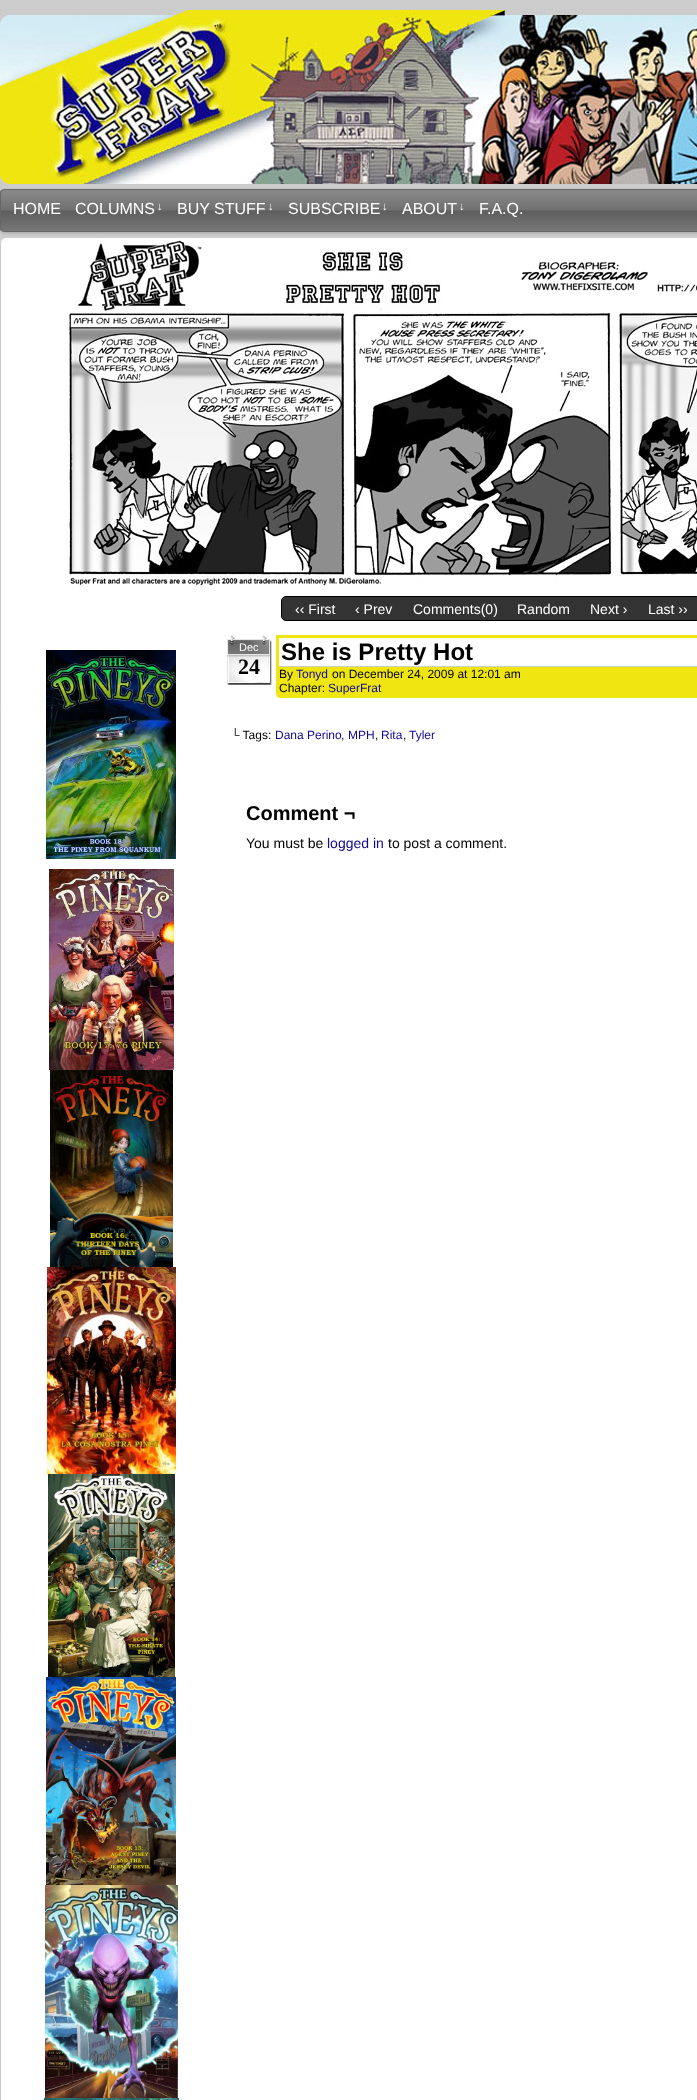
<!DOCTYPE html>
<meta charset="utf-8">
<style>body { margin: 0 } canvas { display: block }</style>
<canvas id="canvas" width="697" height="2100"></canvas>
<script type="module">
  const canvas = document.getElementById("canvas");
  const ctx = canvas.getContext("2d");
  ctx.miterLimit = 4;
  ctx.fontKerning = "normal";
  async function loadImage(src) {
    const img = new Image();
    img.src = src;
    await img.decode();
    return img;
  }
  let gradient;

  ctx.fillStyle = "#cccccc";
  ctx.fillRect(0, 0, 697, 2100);
  ctx.drawImage(await loadImage("img1.png"), 0, 10, 697, 174);
  ctx.fillStyle = "rgba(0, 0, 0, 0.2)";
  ctx.filter = "blur(1.5px)";
  ctx.beginPath();
  ctx.roundRect(1, 190, 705, 43, 4);
  ctx.fill();
  ctx.filter = "none";
  ctx.save();
  ctx.beginPath();
  ctx.roundRect(0, 189, 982, 43, 4);
  ctx.clip();
  gradient = ctx.createLinearGradient(491, 190, 491, 231);
  gradient.addColorStop(0, "#8a8a8a");
  gradient.addColorStop(0.49, "#707070");
  gradient.addColorStop(0.51, "#5e5e5e");
  gradient.addColorStop(1, "#777777");
  ctx.fillStyle = gradient;
  ctx.fillRect(0, 190, 697, 41);
  ctx.restore();
  ctx.beginPath();
  ctx.roundRect(0.5, 189.5, 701, 42, 3.5);
  ctx.strokeStyle = "#666666";
  ctx.stroke();
  ctx.font = "16px Liberation Sans";
  ctx.fillStyle = "#ffffff";
  ctx.fillText("HOME", 13, 214);
  ctx.fillText("COLUMNS", 75, 214);
  ctx.font = "11px Liberation Sans";
  ctx.fillText("↓", 157, 210);
  ctx.font = "16px Liberation Sans";
  ctx.fillText("BUY STUFF", 177, 214);
  ctx.font = "11px Liberation Sans";
  ctx.fillText("↓", 268, 210);
  ctx.font = "16px Liberation Sans";
  ctx.fillText("SUBSCRIBE", 288, 214);
  ctx.font = "11px Liberation Sans";
  ctx.fillText("↓", 382, 210);
  ctx.font = "16px Liberation Sans";
  ctx.fillText("ABOUT", 402, 214);
  ctx.font = "11px Liberation Sans";
  ctx.fillText("↓", 459, 210);
  ctx.font = "16px Liberation Sans";
  ctx.fillText("F.A.Q.", 479, 214);
  ctx.beginPath();
  ctx.roundRect(0.5, 237.5, 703, 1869, 5.5);
  ctx.fill();
  ctx.strokeStyle = "#cccccc";
  ctx.stroke();
  ctx.drawImage(await loadImage("img2.png"), 67, 239, 630, 347);
  ctx.fillStyle = "#333333";
  ctx.beginPath();
  ctx.roundRect(281.5, 596.5, 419, 24, 4.5);
  ctx.fill();
  ctx.strokeStyle = "#000000";
  ctx.stroke();
  ctx.font = "14px Liberation Sans";
  ctx.fillStyle = "#ffffff";
  ctx.fillText("‹‹ First", 295, 614);
  ctx.fillText("‹ Prev", 355, 614);
  ctx.fillText("Comments(0)", 413, 614);
  ctx.fillText("Random", 517, 614);
  ctx.fillText("Next ›", 590, 614);
  ctx.fillText("Last ››", 648, 614);
  ctx.drawImage(await loadImage("img3.png"), 46, 650, 130, 209);
  ctx.drawImage(await loadImage("img4.png"), 49, 869, 125, 201);
  ctx.drawImage(await loadImage("img5.png"), 50, 1070, 123, 197);
  ctx.drawImage(await loadImage("img6.png"), 47, 1267, 129, 207);
  ctx.drawImage(await loadImage("img7.png"), 48, 1474, 127, 203);
  ctx.drawImage(await loadImage("img8.png"), 46, 1677, 130, 208);
  ctx.drawImage(await loadImage("img9.png"), 45, 1885, 133, 213);
  ctx.drawImage(await loadImage("img10.png"), 44, 2098, 135, 2);
  ctx.drawImage(await loadImage("img11.png"), 227, 636, 45, 49);
  ctx.font = "11px Liberation Sans";
  ctx.fillText("Dec", 239, 651);
  ctx.font = "bold 22px Liberation Serif";
  ctx.fillStyle = "#000000";
  ctx.fillText("24", 238, 674);
  ctx.fillStyle = "#efe511";
  ctx.beginPath();
  ctx.moveTo(276, 635);
  ctx.lineTo(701, 635);
  ctx.lineTo(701, 694);
  ctx.bezierCurveTo(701, 696, 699, 698, 697, 698);
  ctx.lineTo(280, 698);
  ctx.bezierCurveTo(278, 698, 276, 696, 276, 694);
  ctx.closePath();
  ctx.fill();
  ctx.fillStyle = "#ffffff";
  ctx.fillRect(279, 638, 418, 28);
  ctx.fillStyle = "#cccccc";
  ctx.fillRect(279, 666, 418, 1);
  ctx.font = "bold 24px Liberation Sans";
  ctx.fillStyle = "#000000";
  ctx.fillText("She is Pretty Hot", 281, 660);
  ctx.font = "12px Liberation Sans";
  ctx.fillText("By", 279, 678);
  ctx.fillStyle = "#110990";
  ctx.fillText("Tonyd", 296, 678);
  ctx.fillStyle = "#000000";
  ctx.fillText("on December 24, 2009 at 12:01 am", 332, 678);
  ctx.fillText("Chapter:", 279, 692);
  ctx.fillStyle = "#110990";
  ctx.fillText("SuperFrat", 328, 692);
  ctx.fillStyle = "#000000";
  ctx.fillText("└ Tags:", 231, 739);
  ctx.fillStyle = "#110990";
  ctx.fillText("Dana Perino", 275, 739);
  ctx.fillStyle = "#000000";
  ctx.fillText(",", 341, 739);
  ctx.fillStyle = "#110990";
  ctx.fillText("MPH", 348, 739);
  ctx.fillStyle = "#000000";
  ctx.fillText(",", 375, 739);
  ctx.fillStyle = "#110990";
  ctx.fillText("Rita", 381, 739);
  ctx.fillStyle = "#000000";
  ctx.fillText(",", 403, 739);
  ctx.fillStyle = "#110990";
  ctx.fillText("Tyler", 409, 739);
  ctx.font = "bold 20px Liberation Sans";
  ctx.fillStyle = "#000000";
  ctx.fillText("Comment ¬", 246, 820);
  ctx.font = "14px Liberation Sans";
  ctx.fillText("You must be", 246, 848);
  ctx.fillStyle = "#110990";
  ctx.fillText("logged in", 327, 848);
  ctx.fillStyle = "#000000";
  ctx.fillText("to post a comment.", 388, 848);
</script>
